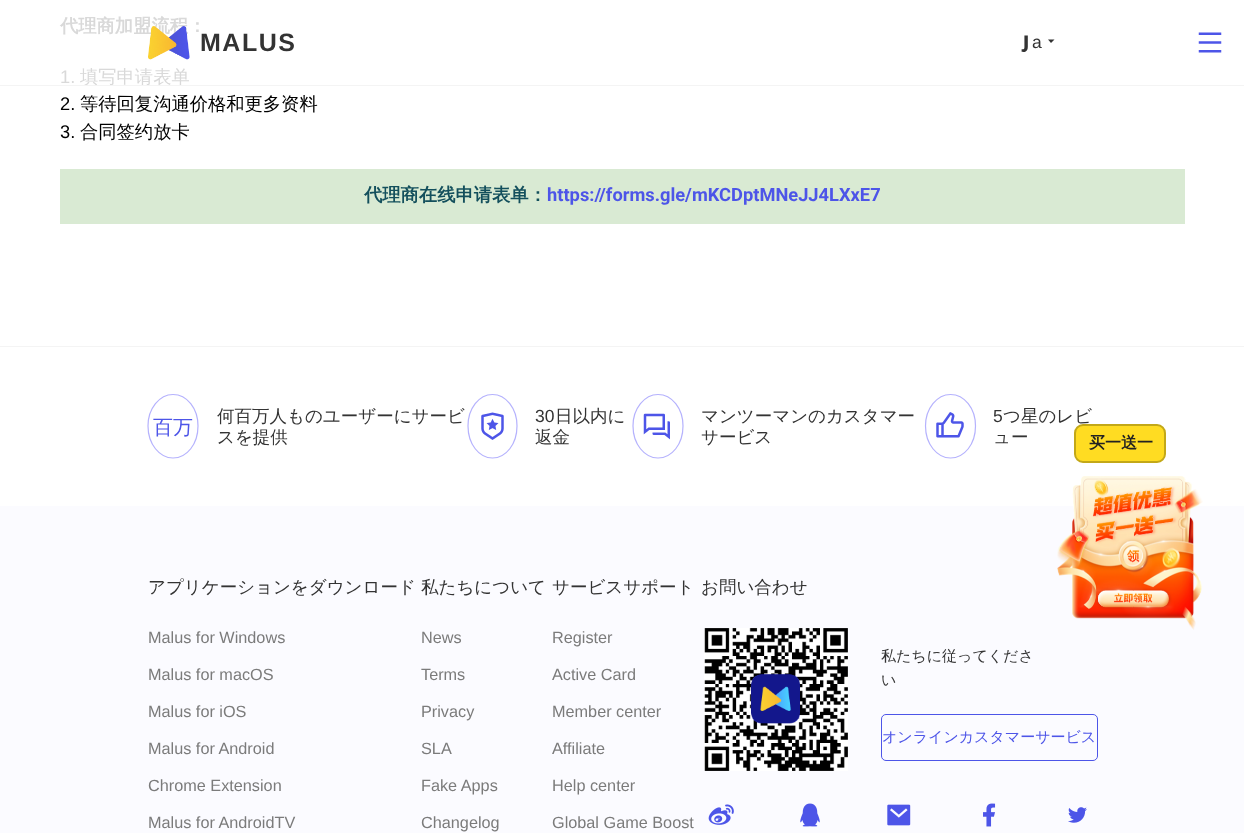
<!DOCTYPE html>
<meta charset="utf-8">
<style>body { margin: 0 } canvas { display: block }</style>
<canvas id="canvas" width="1244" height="833"></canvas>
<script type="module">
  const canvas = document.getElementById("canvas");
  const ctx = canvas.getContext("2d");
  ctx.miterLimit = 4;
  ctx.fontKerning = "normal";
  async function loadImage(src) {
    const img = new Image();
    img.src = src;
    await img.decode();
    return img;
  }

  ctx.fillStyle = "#ffffff";
  ctx.fillRect(0, 0, 1244, 833);
  ctx.font = "bold 18.3px WenQuanYi Zen Hei";
  ctx.fillStyle = "#d9d9d9";
  ctx.fillText("代理商加盟流程：", 60, 32);
  ctx.font = "18.3px Liberation Sans";
  ctx.fillText("1.", 60, 83);
  ctx.font = "500 18.3px WenQuanYi Zen Hei";
  ctx.fillText("填写申请表单", 80, 83);
  ctx.font = "18.3px Liberation Sans";
  ctx.fillStyle = "#000000";
  ctx.fillText("2.", 60, 110);
  ctx.font = "500 18.3px WenQuanYi Zen Hei";
  ctx.fillText("等待回复沟通价格和更多资料", 80, 110);
  ctx.font = "18.3px Liberation Sans";
  ctx.fillText("3.", 60, 138);
  ctx.font = "500 18.3px WenQuanYi Zen Hei";
  ctx.fillText("合同签约放卡", 80, 138);
  ctx.fillStyle = "#d9ead3";
  ctx.fillRect(61, 170, 1123, 53);
  ctx.fillRect(60, 169, 1125, 1);
  ctx.fillRect(1184, 169, 1, 55);
  ctx.fillRect(60, 223, 1125, 1);
  ctx.fillRect(60, 169, 1, 55);
  ctx.font = "bold 18.3px WenQuanYi Zen Hei";
  ctx.fillStyle = "#134f5c";
  ctx.fillText("代理商在线申请表单：", 364, 201);
  ctx.font = "bold 18.3px Roboto";
  ctx.fillStyle = "#4d55e8";
  ctx.fillText("https://forms.gle/mKCDptMNeJJ4LXxE7", 547, 201);
  ctx.fillStyle = "#f4f4f4";
  ctx.fillRect(0, 85, 1244, 1);
  ctx.drawImage(await loadImage("img1.png"), 148, 26, 42, 34);
  ctx.letterSpacing = "1.5px";
  ctx.font = "bold 25px Liberation Sans";
  ctx.fillStyle = "#333333";
  ctx.fillText("MALUS", 200, 51);
  ctx.letterSpacing = "0px";
  ctx.font = "900 17.5px Noto Sans";
  ctx.fillText("J", 1023, 48);
  ctx.font = "17.5px Liberation Sans";
  ctx.fillText("a", 1032, 48);
  ctx.beginPath();
  ctx.moveTo(1051, 43);
  ctx.lineTo(1048, 39.5);
  ctx.lineTo(1054.5, 39.5);
  ctx.closePath();
  ctx.fill();
  ctx.drawImage(await loadImage("img2.png"), 1198, 32, 24, 21);
  ctx.fillStyle = "#fbfbff";
  ctx.fillRect(0, 506, 1244, 327);
  ctx.fillStyle = "#f4f4f4";
  ctx.fillRect(0, 346, 1244, 1);
  ctx.beginPath();
  ctx.moveTo(173, 394.5);
  ctx.bezierCurveTo(187, 394.5, 198, 408.5, 198, 426);
  ctx.bezierCurveTo(198, 444, 187, 458, 173, 458);
  ctx.bezierCurveTo(159.5, 458, 148, 444, 148, 426);
  ctx.bezierCurveTo(148, 408.5, 159.5, 394.5, 173, 394.5);
  ctx.closePath();
  ctx.strokeStyle = "#b5b2fd";
  ctx.lineWidth = 1.2;
  ctx.stroke();
  ctx.font = "500 20px WenQuanYi Zen Hei";
  ctx.fillStyle = "#4d55e8";
  ctx.fillText("百万", 153, 434);
  ctx.font = "500 17.5px WenQuanYi Zen Hei";
  ctx.fillStyle = "#333333";
  ctx.fillText("何百万人ものユーザーにサービ", 217, 422);
  ctx.fillText("スを提供", 217, 443);
  ctx.beginPath();
  ctx.moveTo(492.5, 394.5);
  ctx.bezierCurveTo(506, 394.5, 517, 408.5, 517, 426);
  ctx.bezierCurveTo(517, 444, 506, 458, 492.5, 458);
  ctx.bezierCurveTo(479, 458, 468, 444, 468, 426);
  ctx.bezierCurveTo(468, 408.5, 479, 394.5, 492.5, 394.5);
  ctx.closePath();
  ctx.stroke();
  ctx.drawImage(await loadImage("img3.png"), 481, 412, 23, 28);
  ctx.font = "17.5px Liberation Sans";
  ctx.fillText("30", 535, 422);
  ctx.font = "500 17.5px WenQuanYi Zen Hei";
  ctx.fillText("日以内に", 555, 422);
  ctx.fillText("返金", 535, 443);
  ctx.beginPath();
  ctx.moveTo(658, 394.5);
  ctx.bezierCurveTo(672, 394.5, 683, 408.5, 683, 426);
  ctx.bezierCurveTo(683, 444, 672, 458, 658, 458);
  ctx.bezierCurveTo(644.5, 458, 633, 444, 633, 426);
  ctx.bezierCurveTo(633, 408.5, 644.5, 394.5, 658, 394.5);
  ctx.closePath();
  ctx.stroke();
  ctx.drawImage(await loadImage("img4.png"), 643, 413, 27, 27);
  ctx.fillText("マンツーマンのカスタマー", 701, 422);
  ctx.fillText("サービス", 701, 443);
  ctx.beginPath();
  ctx.moveTo(950.5, 394.5);
  ctx.bezierCurveTo(964.5, 394.5, 975.5, 408.5, 975.5, 426);
  ctx.bezierCurveTo(975.5, 444, 964.5, 458, 950.5, 458);
  ctx.bezierCurveTo(937, 458, 925.5, 444, 925.5, 426);
  ctx.bezierCurveTo(925.5, 408.5, 937, 394.5, 950.5, 394.5);
  ctx.closePath();
  ctx.stroke();
  ctx.drawImage(await loadImage("img5.png"), 936, 412, 28, 26);
  ctx.font = "17.5px Liberation Sans";
  ctx.fillText("5", 993, 422);
  ctx.font = "500 17.5px WenQuanYi Zen Hei";
  ctx.fillText("つ星のレビ", 1003, 422);
  ctx.fillText("ュー", 993, 443);
  ctx.fillText("アプリケーションをダウンロード", 148, 593);
  ctx.font = "16.25px Liberation Sans";
  ctx.fillStyle = "#7b7b7b";
  ctx.fillText("Malus for Windows", 148, 643);
  ctx.fillText("Malus for macOS", 148, 680);
  ctx.fillText("Malus for iOS", 148, 717);
  ctx.fillText("Malus for Android", 148, 754);
  ctx.fillText("Chrome Extension", 148, 791);
  ctx.fillText("Malus for AndroidTV", 148, 828);
  ctx.font = "500 17.5px WenQuanYi Zen Hei";
  ctx.fillStyle = "#333333";
  ctx.fillText("私たちについて", 421, 593);
  ctx.font = "16.25px Liberation Sans";
  ctx.fillStyle = "#7b7b7b";
  ctx.fillText("News", 421, 643);
  ctx.fillText("Terms", 421, 680);
  ctx.fillText("Privacy", 421, 717);
  ctx.fillText("SLA", 421, 754);
  ctx.fillText("Fake Apps", 421, 791);
  ctx.fillText("Changelog", 421, 828);
  ctx.font = "500 17.5px WenQuanYi Zen Hei";
  ctx.fillStyle = "#333333";
  ctx.fillText("サービスサポート", 552, 593);
  ctx.font = "16.25px Liberation Sans";
  ctx.fillStyle = "#7b7b7b";
  ctx.fillText("Register", 552, 643);
  ctx.fillText("Active Card", 552, 680);
  ctx.fillText("Member center", 552, 717);
  ctx.fillText("Affiliate", 552, 754);
  ctx.fillText("Help center", 552, 791);
  ctx.fillText("Global Game Boost", 552, 828);
  ctx.font = "500 17.5px WenQuanYi Zen Hei";
  ctx.fillStyle = "#333333";
  ctx.fillText("お問い合わせ", 701, 593);
  ctx.drawImage(await loadImage("img6.png"), 704, 628, 144, 143);
  ctx.font = "500 15px WenQuanYi Zen Hei";
  ctx.fillText("私たちに従ってくださ", 881, 661);
  ctx.fillText("い", 881, 685);
  ctx.beginPath();
  ctx.roundRect(881.5, 714.5, 216, 46, 4.5);
  ctx.strokeStyle = "#4d55e8";
  ctx.lineWidth = 1;
  ctx.stroke();
  ctx.fillStyle = "#4d55e8";
  ctx.fillText("オンラインカスタマーサービス", 882, 742);
  ctx.drawImage(await loadImage("img7.png"), 708, 804, 26, 21);
  ctx.drawImage(await loadImage("img8.png"), 800, 803, 20, 24);
  ctx.drawImage(await loadImage("img9.png"), 887, 804, 24, 22);
  ctx.drawImage(await loadImage("img10.png"), 983, 803, 13, 24);
  ctx.drawImage(await loadImage("img11.png"), 1068, 807, 19, 16);
  ctx.fillStyle = "#ffdc22";
  ctx.beginPath();
  ctx.roundRect(1075, 425, 90, 37, 8);
  ctx.fill();
  ctx.strokeStyle = "#c3a818";
  ctx.lineWidth = 2;
  ctx.stroke();
  ctx.font = "bold 16px WenQuanYi Zen Hei";
  ctx.fillStyle = "#222222";
  ctx.fillText("买一送一", 1089, 448);
  ctx.drawImage(await loadImage("img12.png"), 1057, 476, 146, 154);
</script>
